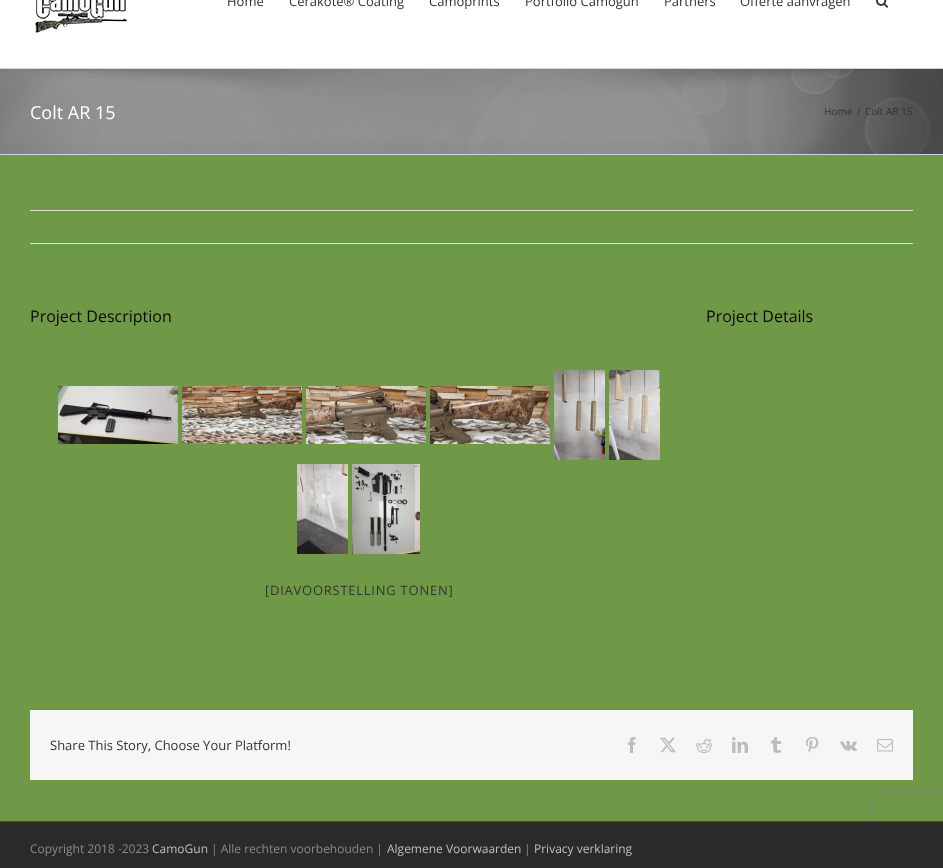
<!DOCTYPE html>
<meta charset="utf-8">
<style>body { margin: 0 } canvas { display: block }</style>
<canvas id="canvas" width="943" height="868"></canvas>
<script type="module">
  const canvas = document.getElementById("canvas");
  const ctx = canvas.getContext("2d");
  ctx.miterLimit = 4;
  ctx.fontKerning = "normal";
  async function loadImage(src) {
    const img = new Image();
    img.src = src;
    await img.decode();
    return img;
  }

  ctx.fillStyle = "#709947";
  ctx.fillRect(0, 0, 943, 868);
  ctx.fillStyle = "#ffffff";
  ctx.fillRect(0, 0, 943, 68);
  ctx.drawImage(await loadImage("img1.png"), 35, 0, 92, 33);
  ctx.font = "13px Open Sans";
  ctx.fillStyle = "#333333";
  ctx.fillText("Home", 227, 6);
  ctx.fillText("Cerakote® Coating", 289, 6);
  ctx.fillText("Camoprints", 429, 6);
  ctx.fillText("Portfolio Camogun", 525, 6);
  ctx.fillText("Partners", 664, 6);
  ctx.fillText("Offerte aanvragen", 740, 6);
  ctx.drawImage(await loadImage("img2.png"), 876, 0, 12, 8);
  ctx.fillStyle = "#424242";
  ctx.fillRect(0, 69, 943, 85);
  ctx.drawImage(await loadImage("img3.png"), 0, 69, 943, 85);
  ctx.fillStyle = "#d2d3d4";
  ctx.fillRect(0, 68, 943, 1);
  ctx.fillRect(0, 154, 943, 1);
  ctx.font = "18px Open Sans";
  ctx.fillStyle = "#ffffff";
  ctx.fillText("Colt AR 15", 30, 119);
  ctx.font = "10px Open Sans";
  ctx.fillStyle = "#333333";
  ctx.fillText("Home", 824, 115);
  ctx.fillText("/", 857, 115);
  ctx.fillText("Colt AR 15", 865, 115);
  ctx.fillStyle = "#e0dede";
  ctx.fillRect(30, 210, 883, 1);
  ctx.fillRect(30, 243, 883, 1);
  ctx.font = "16px Open Sans";
  ctx.fillStyle = "#0a0a0a";
  ctx.fillText("Project Description", 30, 322);
  ctx.drawImage(await loadImage("img4.png"), 58, 386, 120, 58);
  ctx.drawImage(await loadImage("img5.png"), 182, 386, 120, 58);
  ctx.drawImage(await loadImage("img6.png"), 306, 386, 120, 58);
  ctx.drawImage(await loadImage("img7.png"), 430, 386, 120, 58);
  ctx.drawImage(await loadImage("img8.png"), 554, 370, 51, 90);
  ctx.drawImage(await loadImage("img9.png"), 609, 370, 51, 90);
  ctx.drawImage(await loadImage("img10.png"), 297, 464, 51, 90);
  ctx.drawImage(await loadImage("img11.png"), 352, 464, 68, 90);
  ctx.letterSpacing = "0.75px";
  ctx.font = "13px Open Sans";
  ctx.fillStyle = "#333333";
  ctx.fillText("[DIAVOORSTELLING TONEN]", 265, 595);
  ctx.letterSpacing = "0px";
  ctx.font = "16px Open Sans";
  ctx.fillStyle = "#0a0a0a";
  ctx.fillText("Project Details", 706, 322);
  ctx.fillStyle = "#f6f6f6";
  ctx.fillRect(30, 710, 883, 70);
  ctx.font = "13px Open Sans";
  ctx.fillStyle = "#333333";
  ctx.fillText("Share This Story, Choose Your Platform!", 50, 750);
  ctx.drawImage(await loadImage("img12.png"), 628, 737, 8, 16);
  ctx.drawImage(await loadImage("img13.png"), 660, 737, 16, 16);
  ctx.drawImage(await loadImage("img14.png"), 696, 739, 16, 14);
  ctx.drawImage(await loadImage("img15.png"), 732, 737, 16, 16);
  ctx.drawImage(await loadImage("img16.png"), 771, 737, 10, 16);
  ctx.drawImage(await loadImage("img17.png"), 805, 737, 14, 16);
  ctx.drawImage(await loadImage("img18.png"), 840, 741, 17, 10);
  ctx.drawImage(await loadImage("img19.png"), 877, 739, 16, 13);
  ctx.save();
  ctx.beginPath();
  ctx.moveTo(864, 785);
  ctx.lineTo(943, 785);
  ctx.lineTo(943, 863);
  ctx.lineTo(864, 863);
  ctx.closePath();
  ctx.moveTo(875, 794);
  ctx.lineTo(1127, 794);
  ctx.bezierCurveTo(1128, 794, 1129, 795, 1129, 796);
  ctx.lineTo(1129, 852);
  ctx.bezierCurveTo(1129, 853, 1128, 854, 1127, 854);
  ctx.lineTo(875, 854);
  ctx.bezierCurveTo(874, 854, 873, 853, 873, 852);
  ctx.lineTo(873, 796);
  ctx.bezierCurveTo(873, 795, 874, 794, 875, 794);
  ctx.closePath();
  ctx.clip("evenodd");
  ctx.fillStyle = "#808080";
  ctx.filter = "blur(2.5px)";
  ctx.beginPath();
  ctx.roundRect(873, 794, 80, 60, 2);
  ctx.fill();
  ctx.filter = "none";
  ctx.restore();
  ctx.fillStyle = "#282a2b";
  ctx.fillRect(0, 822, 943, 46);
  ctx.fillStyle = "#4b4c4d";
  ctx.fillRect(0, 821, 943, 1);
  ctx.font = "12px Open Sans";
  ctx.fillStyle = "#8c8989";
  ctx.fillText("Copyright 2018 -2023", 30, 853);
  ctx.fillStyle = "#bfbfbf";
  ctx.fillText("CamoGun", 152, 853);
  ctx.fillStyle = "#8c8989";
  ctx.fillText("| Alle rechten voorbehouden |", 211, 853);
  ctx.fillStyle = "#bfbfbf";
  ctx.fillText("Algemene Voorwaarden", 387, 853);
  ctx.fillStyle = "#8c8989";
  ctx.fillText("|", 524, 853);
  ctx.fillStyle = "#bfbfbf";
  ctx.fillText("Privacy verklaring", 534, 853);
</script>
